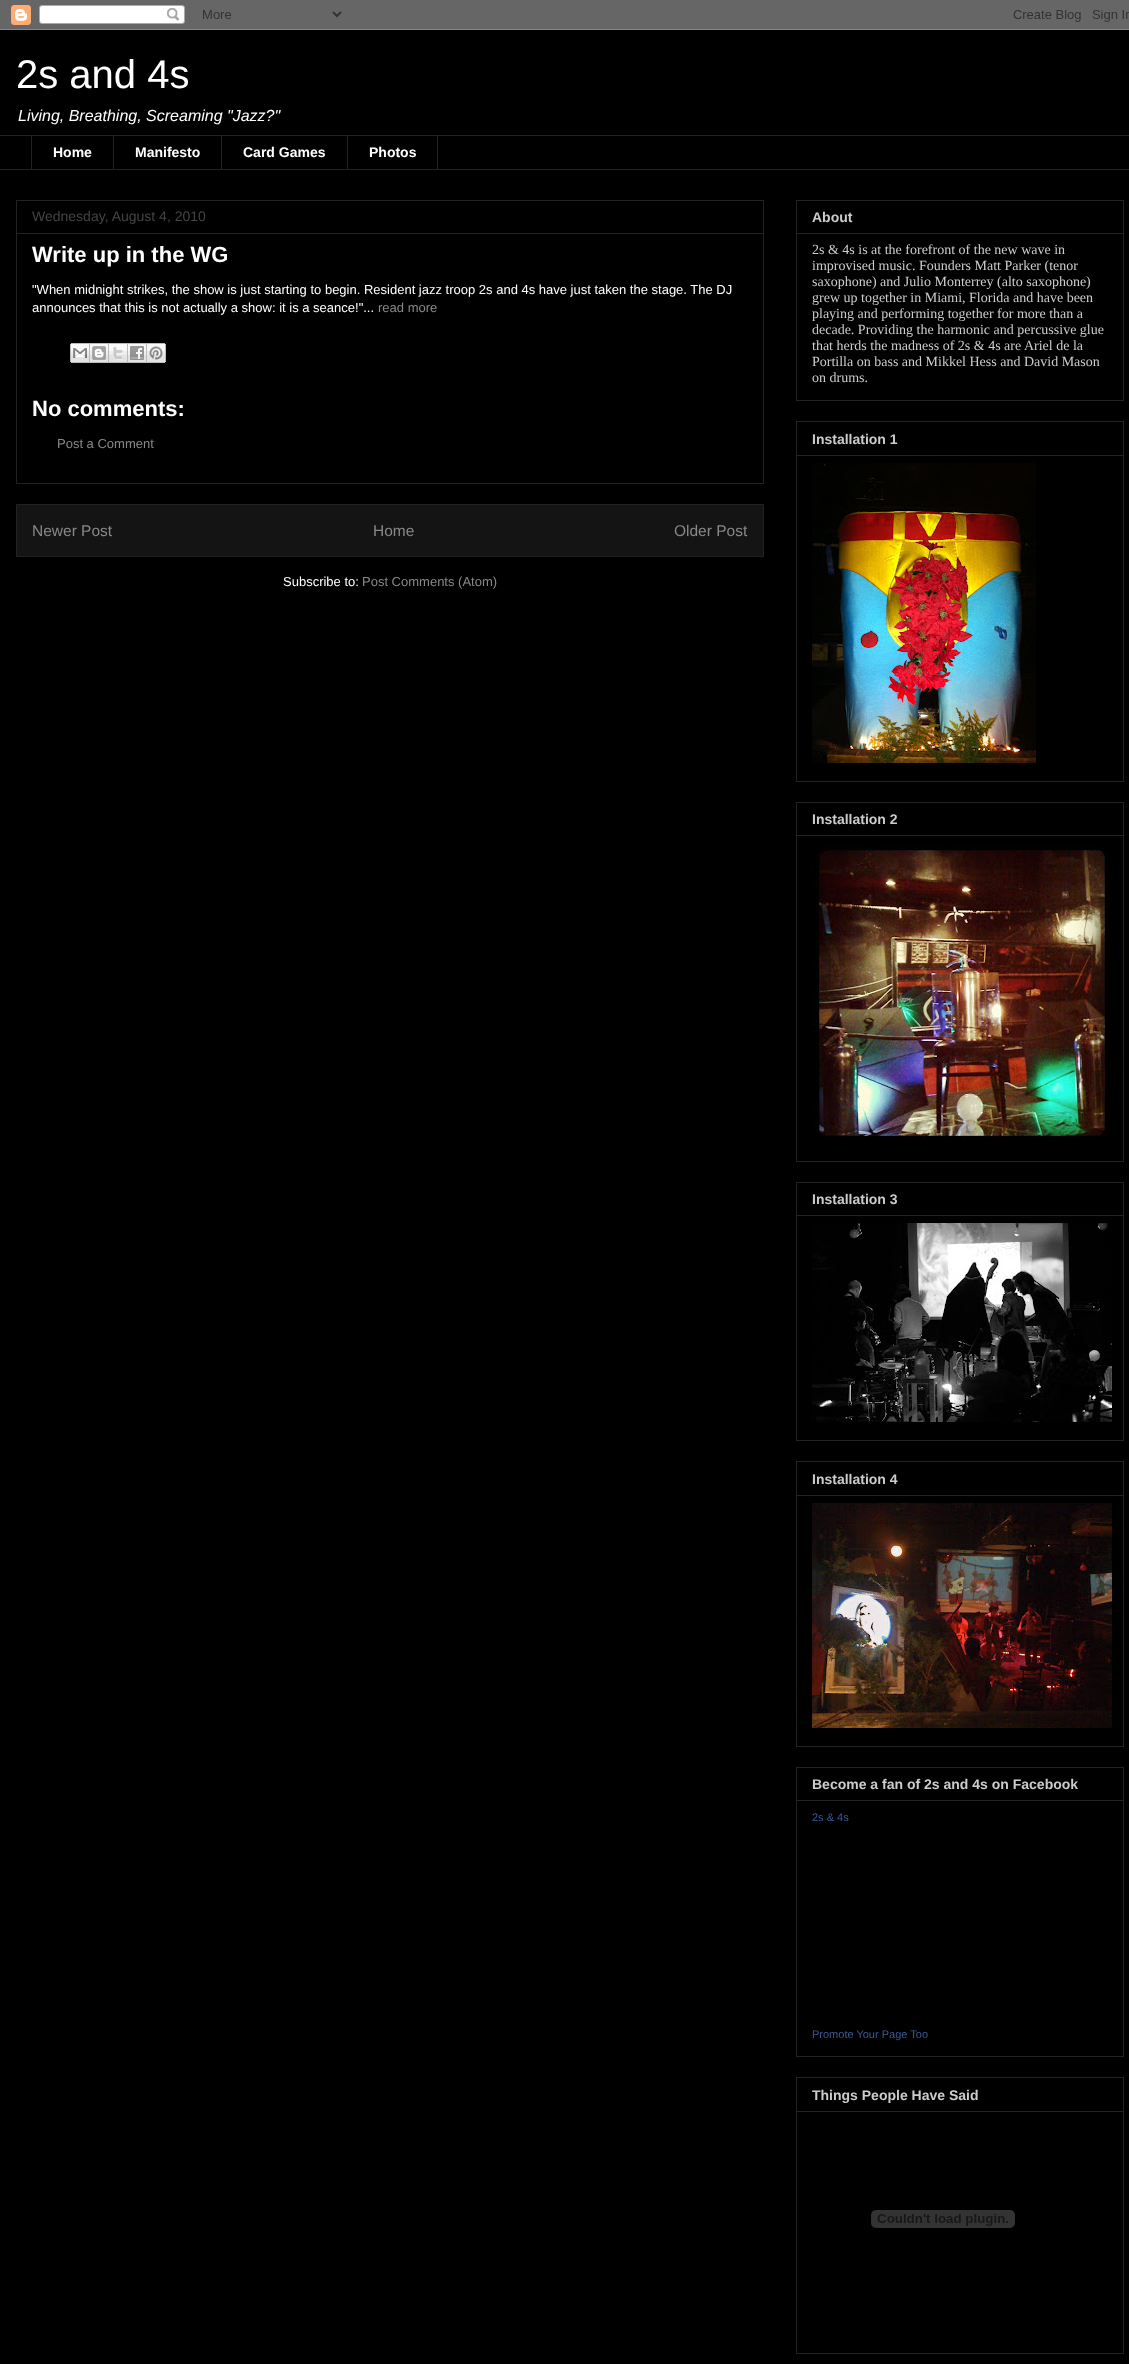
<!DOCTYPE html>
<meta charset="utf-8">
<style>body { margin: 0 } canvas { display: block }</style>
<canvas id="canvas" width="1129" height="2364"></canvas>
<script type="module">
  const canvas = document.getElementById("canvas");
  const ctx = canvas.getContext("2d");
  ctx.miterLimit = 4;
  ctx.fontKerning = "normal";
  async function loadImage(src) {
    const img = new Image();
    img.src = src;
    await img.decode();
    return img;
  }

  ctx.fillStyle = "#000000";
  ctx.fillRect(0, 0, 1129, 2364);
  ctx.drawImage(await loadImage("img1.png"), 0, 0, 1129, 30);
  ctx.font = "40px Liberation Sans";
  ctx.fillStyle = "#ffffff";
  ctx.fillText("2s and 4s", 16, 88);
  ctx.font = "italic 16px Liberation Sans";
  ctx.fillText("Living, Breathing, Screaming \"Jazz?\"", 18, 121);
  ctx.fillStyle = "#222222";
  ctx.fillRect(0, 135, 1129, 1);
  ctx.fillRect(31, 135, 1, 35);
  ctx.font = "bold 14px Liberation Sans";
  ctx.fillStyle = "#ffffff";
  ctx.fillText("Home", 53, 157);
  ctx.fillStyle = "#222222";
  ctx.fillRect(113, 135, 1, 35);
  ctx.fillStyle = "#ffffff";
  ctx.fillText("Manifesto", 135, 157);
  ctx.fillStyle = "#222222";
  ctx.fillRect(221, 135, 1, 35);
  ctx.fillStyle = "#ffffff";
  ctx.fillText("Card Games", 243, 157);
  ctx.strokeStyle = "#222222";
  ctx.strokeRect(347.5, 135.5, 90, 34);
  ctx.fillText("Photos", 369, 157);
  ctx.fillStyle = "#222222";
  ctx.fillRect(0, 169, 1129, 1);
  ctx.strokeRect(16.5, 200.5, 747, 283);
  ctx.font = "14px Liberation Sans";
  ctx.fillStyle = "#444444";
  ctx.fillText("Wednesday, August 4, 2010", 32, 221);
  ctx.fillStyle = "#222222";
  ctx.fillRect(17, 233, 746, 1);
  ctx.font = "bold 22px Liberation Sans";
  ctx.fillStyle = "#ffffff";
  ctx.fillText("Write up in the WG", 32, 262);
  ctx.font = "13px Liberation Sans";
  ctx.fillText("\"When midnight strikes, the show is just starting to begin. Resident jazz troop 2s and 4s have just taken the stage. The DJ", 32, 294);
  ctx.fillText("announces that this is not actually a show: it is a seance!\"...", 32, 312);
  ctx.fillStyle = "#888888";
  ctx.fillText("read more", 378, 312);
  ctx.drawImage(await loadImage("img2.png"), 70, 343, 20, 20);
  ctx.drawImage(await loadImage("img3.png"), 90, 343, 19, 20);
  ctx.drawImage(await loadImage("img4.png"), 109, 343, 19, 20);
  ctx.drawImage(await loadImage("img5.png"), 128, 343, 19, 20);
  ctx.drawImage(await loadImage("img6.png"), 147, 343, 19, 20);
  ctx.font = "bold 22px Liberation Sans";
  ctx.fillStyle = "#ffffff";
  ctx.fillText("No comments:", 32, 416);
  ctx.font = "13px Liberation Sans";
  ctx.fillStyle = "#888888";
  ctx.fillText("Post a Comment", 57, 448);
  ctx.fillStyle = "#141414";
  ctx.beginPath();
  ctx.rect(16.5, 504.5, 747, 52);
  ctx.fill();
  ctx.stroke();
  ctx.font = "15.5px Liberation Sans";
  ctx.fillStyle = "#888888";
  ctx.fillText("Newer Post", 32, 536);
  ctx.fillText("Home", 373, 536);
  ctx.fillText("Older Post", 674, 536);
  ctx.font = "13px Liberation Sans";
  ctx.fillStyle = "#ffffff";
  ctx.fillText("Subscribe to:", 283, 586);
  ctx.fillStyle = "#888888";
  ctx.fillText("Post Comments (Atom)", 362, 586);
  ctx.strokeRect(796.5, 200.5, 327, 200);
  ctx.font = "bold 14px Liberation Sans";
  ctx.fillStyle = "#cccccc";
  ctx.fillText("About", 812, 222);
  ctx.fillStyle = "#222222";
  ctx.fillRect(797, 233, 326, 1);
  ctx.font = "14px Liberation Serif";
  ctx.fillStyle = "#cccccc";
  ctx.fillText("2s & 4s is at the forefront of the new wave in", 812, 254);
  ctx.fillText("improvised music. Founders Matt Parker (tenor", 812, 270);
  ctx.fillText("saxophone) and Julio Monterrey (alto saxophone)", 812, 286);
  ctx.fillText("grew up together in Miami, Florida and have been", 812, 302);
  ctx.fillText("playing and performing together for more than a", 812, 318);
  ctx.fillText("decade. Providing the harmonic and percussive glue", 812, 334);
  ctx.fillText("that herds the madness of 2s & 4s are Ariel de la", 812, 350);
  ctx.fillText("Portilla on bass and Mikkel Hess and David Mason", 812, 366);
  ctx.fillText("on drums.", 812, 382);
  ctx.strokeRect(796.5, 421.5, 327, 360);
  ctx.font = "bold 14px Liberation Sans";
  ctx.fillText("Installation 1", 812, 444);
  ctx.fillStyle = "#222222";
  ctx.fillRect(797, 455, 326, 1);
  ctx.drawImage(await loadImage("img7.png"), 812, 463, 224, 300);
  ctx.strokeRect(796.5, 802.5, 327, 359);
  ctx.fillStyle = "#cccccc";
  ctx.fillText("Installation 2", 812, 824);
  ctx.fillStyle = "#222222";
  ctx.fillRect(797, 835, 326, 1);
  ctx.drawImage(await loadImage("img8.png"), 812, 845, 296, 294);
  ctx.strokeRect(796.5, 1182.5, 327, 258);
  ctx.fillStyle = "#cccccc";
  ctx.fillText("Installation 3", 812, 1204);
  ctx.fillStyle = "#222222";
  ctx.fillRect(797, 1215, 326, 1);
  ctx.drawImage(await loadImage("img9.png"), 812, 1223, 300, 199);
  ctx.strokeRect(796.5, 1461.5, 327, 285);
  ctx.fillStyle = "#cccccc";
  ctx.fillText("Installation 4", 812, 1484);
  ctx.fillStyle = "#222222";
  ctx.fillRect(797, 1495, 326, 1);
  ctx.drawImage(await loadImage("img10.png"), 812, 1503, 300, 225);
  ctx.strokeRect(796.5, 1767.5, 327, 289);
  ctx.fillStyle = "#cccccc";
  ctx.fillText("Become a fan of 2s and 4s on Facebook", 812, 1789);
  ctx.fillStyle = "#222222";
  ctx.fillRect(797, 1800, 326, 1);
  ctx.font = "11px Liberation Sans";
  ctx.fillStyle = "#3b5998";
  ctx.fillText("2s & 4s", 812, 1821);
  ctx.fillText("Promote Your Page Too", 812, 2038);
  ctx.strokeRect(796.5, 2077.5, 327, 276);
  ctx.font = "bold 14px Liberation Sans";
  ctx.fillStyle = "#cccccc";
  ctx.fillText("Things People Have Said", 812, 2100);
  ctx.fillStyle = "#222222";
  ctx.fillRect(797, 2111, 326, 1);
  ctx.drawImage(await loadImage("img11.png"), 871, 2210, 144, 18);
</script>
